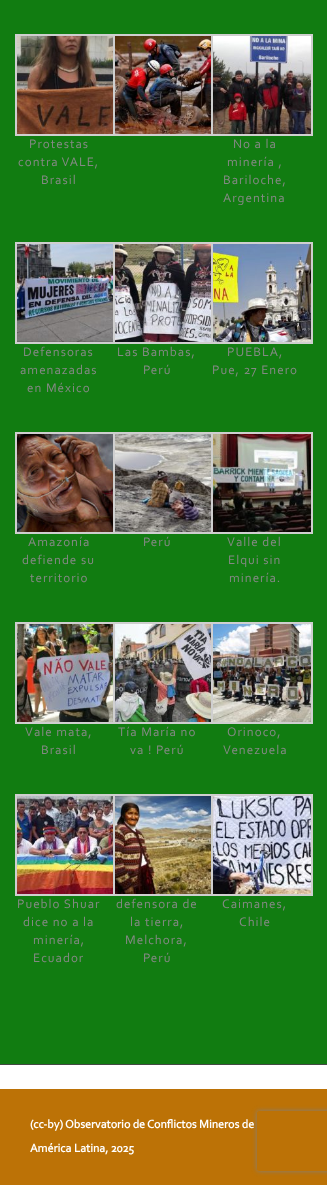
<!DOCTYPE html>
<meta charset="utf-8">
<style>body { margin: 0 } canvas { display: block }</style>
<canvas id="canvas" width="327" height="1185"></canvas>
<script type="module">
  const canvas = document.getElementById("canvas");
  const ctx = canvas.getContext("2d");
  ctx.miterLimit = 4;
  ctx.fontKerning = "normal";
  async function loadImage(src) {
    const img = new Image();
    img.src = src;
    await img.decode();
    return img;
  }

  ctx.fillStyle = "#ffffff";
  ctx.fillRect(0, 0, 327, 1185);
  ctx.fillStyle = "#117c11";
  ctx.fillRect(0, 0, 327, 1064);
  ctx.fillStyle = "#434a43";
  ctx.fillRect(0, 1064, 327, 1);
  ctx.strokeStyle = "#cfcfcf";
  ctx.lineWidth = 2;
  ctx.strokeRect(16, 35, 100, 100);
  ctx.strokeRect(114, 35, 100, 100);
  ctx.drawImage(await loadImage("img1.png"), 115, 36, 96, 98);
  ctx.drawImage(await loadImage("img2.png"), 17, 36, 96, 98);
  ctx.letterSpacing = "1px";
  ctx.font = "13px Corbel";
  ctx.fillStyle = "#848984";
  ctx.fillText("Protestas", 29, 148);
  ctx.fillText("contra VALE,", 18, 166);
  ctx.fillText("Brasil", 41, 184);
  ctx.strokeRect(212, 35, 100, 100);
  ctx.drawImage(await loadImage("img3.png"), 213, 36, 98, 98);
  ctx.fillText("No a la", 233, 148);
  ctx.fillText("minería ,", 227, 166);
  ctx.fillText("Bariloche,", 223, 184);
  ctx.fillText("Argentina", 223, 202);
  ctx.strokeRect(16, 243, 100, 100);
  ctx.drawImage(await loadImage("img4.png"), 17, 244, 96, 98);
  ctx.fillText("Defensoras", 23, 356);
  ctx.fillText("amenazadas", 20, 374);
  ctx.fillText("en México", 27, 392);
  ctx.strokeRect(114, 243, 100, 100);
  ctx.drawImage(await loadImage("img5.png"), 115, 244, 96, 98);
  ctx.fillText("Las Bambas,", 117, 356);
  ctx.fillText("Perú", 143, 374);
  ctx.strokeRect(212, 243, 100, 100);
  ctx.drawImage(await loadImage("img6.png"), 213, 244, 98, 98);
  ctx.fillText("PUEBLA,", 227, 356);
  ctx.fillText("Pue, 27 Enero", 212, 374);
  ctx.strokeRect(16, 433, 100, 100);
  ctx.drawImage(await loadImage("img7.png"), 17, 434, 96, 98);
  ctx.fillText("Amazonía", 28, 546);
  ctx.fillText("defiende su", 22, 564);
  ctx.fillText("territorio", 30, 582);
  ctx.strokeRect(114, 433, 100, 100);
  ctx.drawImage(await loadImage("img8.png"), 115, 434, 96, 98);
  ctx.fillText("Perú", 143, 546);
  ctx.strokeRect(212, 433, 100, 100);
  ctx.drawImage(await loadImage("img9.png"), 213, 434, 98, 98);
  ctx.fillText("Valle del", 227, 546);
  ctx.fillText("Elqui sin", 228, 564);
  ctx.fillText("minería.", 229, 582);
  ctx.strokeRect(16, 623, 100, 100);
  ctx.drawImage(await loadImage("img10.png"), 17, 624, 96, 98);
  ctx.fillText("Vale mata,", 25, 736);
  ctx.fillText("Brasil", 41, 754);
  ctx.strokeRect(114, 623, 100, 100);
  ctx.drawImage(await loadImage("img11.png"), 115, 624, 96, 98);
  ctx.fillText("Tía María no", 118, 736);
  ctx.fillText("va ! Perú", 130, 754);
  ctx.strokeRect(212, 623, 100, 100);
  ctx.drawImage(await loadImage("img12.png"), 213, 624, 98, 98);
  ctx.fillText("Orinoco,", 227, 736);
  ctx.fillText("Venezuela", 223, 754);
  ctx.strokeRect(16, 795, 100, 100);
  ctx.drawImage(await loadImage("img13.png"), 17, 796, 96, 98);
  ctx.fillText("Pueblo Shuar", 17, 908);
  ctx.fillText("dice no a la", 23, 926);
  ctx.fillText("minería,", 33, 944);
  ctx.fillText("Ecuador", 33, 962);
  ctx.strokeRect(114, 795, 100, 100);
  ctx.drawImage(await loadImage("img14.png"), 115, 796, 96, 98);
  ctx.fillText("defensora de", 116, 908);
  ctx.fillText("la tierra,", 130, 926);
  ctx.fillText("Melchora,", 125, 944);
  ctx.fillText("Perú", 143, 962);
  ctx.strokeRect(212, 795, 100, 100);
  ctx.drawImage(await loadImage("img15.png"), 213, 796, 98, 98);
  ctx.fillText("Caimanes,", 222, 908);
  ctx.fillText("Chile", 239, 926);
  ctx.fillStyle = "#bc7206";
  ctx.fillRect(0, 1089, 327, 96);
  ctx.letterSpacing = "0px";
  ctx.font = "bold 12px Corbel";
  ctx.fillStyle = "#ffffff";
  ctx.fillText("(cc-by) Observatorio de Conflictos Mineros de", 30, 1128);
  ctx.fillText("América Latina, 2025", 30, 1152);
  ctx.save();
  ctx.beginPath();
  ctx.moveTo(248, 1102);
  ctx.lineTo(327, 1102);
  ctx.lineTo(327, 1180);
  ctx.lineTo(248, 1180);
  ctx.closePath();
  ctx.moveTo(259, 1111);
  ctx.lineTo(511, 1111);
  ctx.bezierCurveTo(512, 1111, 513, 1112, 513, 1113);
  ctx.lineTo(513, 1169);
  ctx.bezierCurveTo(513, 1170, 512, 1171, 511, 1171);
  ctx.lineTo(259, 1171);
  ctx.bezierCurveTo(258, 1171, 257, 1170, 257, 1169);
  ctx.lineTo(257, 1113);
  ctx.bezierCurveTo(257, 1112, 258, 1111, 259, 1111);
  ctx.closePath();
  ctx.clip("evenodd");
  ctx.fillStyle = "#808080";
  ctx.filter = "blur(2.5px)";
  ctx.beginPath();
  ctx.roundRect(257, 1111, 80, 60, 2);
  ctx.fill();
  ctx.filter = "none";
  ctx.restore();
</script>
